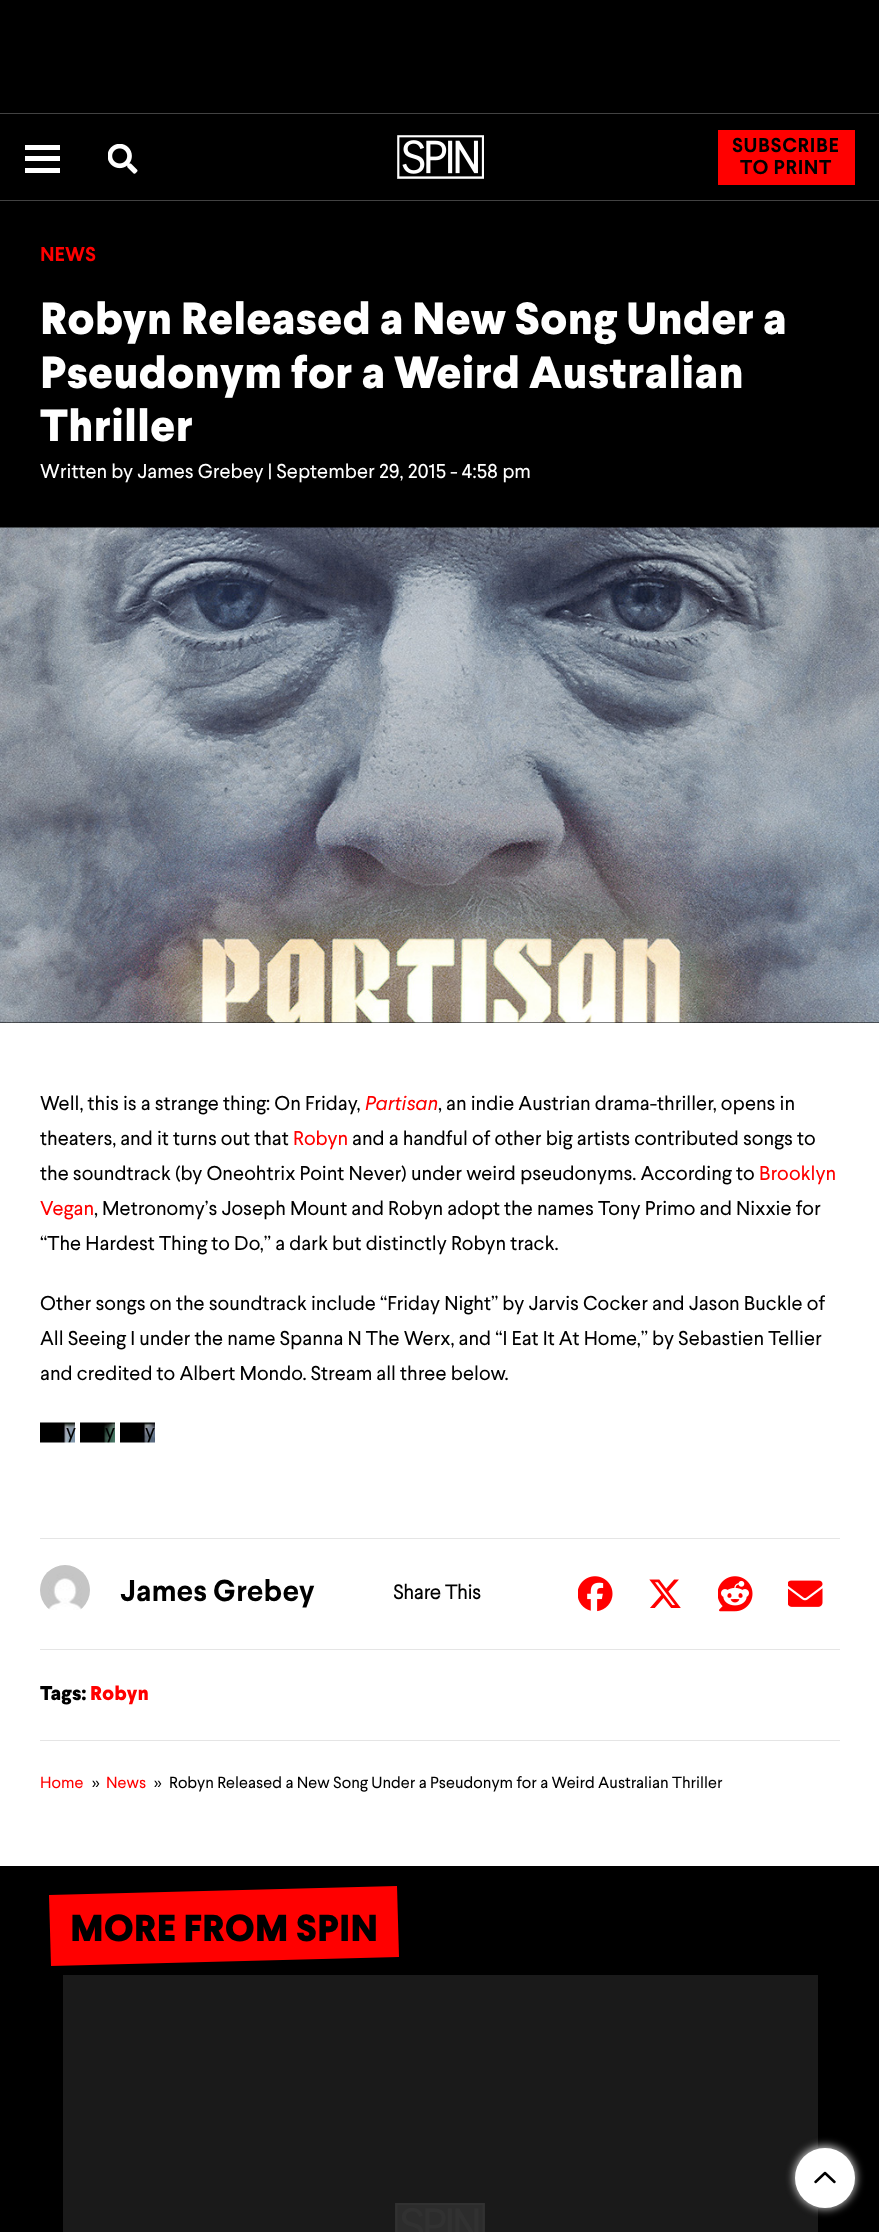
<!DOCTYPE html>
<meta charset="utf-8">
<style>body { margin: 0 } canvas { display: block }</style>
<canvas id="canvas" width="879" height="2232"></canvas>
<script type="module">
  const canvas = document.getElementById("canvas");
  const ctx = canvas.getContext("2d");
  ctx.miterLimit = 4;
  ctx.fontKerning = "normal";
  async function loadImage(src) {
    const img = new Image();
    img.src = src;
    await img.decode();
    return img;
  }

  ctx.fillStyle = "#000000";
  ctx.fillRect(0, 0, 879, 2232);
  ctx.fillStyle = "#424242";
  ctx.fillRect(0, 113, 879, 1);
  ctx.fillRect(0, 200, 879, 1);
  ctx.fillStyle = "#ffffff";
  ctx.fillRect(25, 168, 35, 5);
  ctx.fillRect(25, 145, 35, 5);
  ctx.fillRect(25, 156, 35, 5);
  ctx.drawImage(await loadImage("img1.png"), 108, 144, 30, 30);
  ctx.drawImage(await loadImage("img2.png"), 397, 135, 87, 44);
  ctx.fillStyle = "#ff0000";
  ctx.fillRect(718, 130, 137, 55);
  ctx.letterSpacing = "0.6px";
  ctx.font = "bold 20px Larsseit";
  ctx.fillStyle = "#000000";
  ctx.fillText("SUBSCRIBE", 732, 152);
  ctx.fillText("TO PRINT", 740, 174);
  ctx.letterSpacing = "0px";
  ctx.fillStyle = "#ff0000";
  ctx.fillText("NEWS", 40, 261);
  ctx.font = "800 45px Larsseit";
  ctx.fillStyle = "#ffffff";
  ctx.fillText("Robyn Released a New Song Under a", 40, 334);
  ctx.fillText("Pseudonym for a Weird Australian", 40, 388);
  ctx.fillText("Thriller", 40, 441);
  ctx.font = "20px Larsseit";
  ctx.fillText("Written by James Grebey | September 29, 2015 - 4:58 pm", 40, 478);
  ctx.drawImage(await loadImage("img3.png"), 0, 527, 879, 496);
  ctx.fillRect(0, 1023, 879, 843);
  ctx.fillStyle = "#000000";
  ctx.fillText("Well, this is a strange thing: On Friday,", 40, 1110);
  ctx.font = "italic 20px Larsseit";
  ctx.fillStyle = "#ff0000";
  ctx.fillText("Partisan", 365, 1110);
  ctx.font = "20px Larsseit";
  ctx.fillStyle = "#000000";
  ctx.fillText(", an indie Austrian drama-thriller, opens in", 438, 1110);
  ctx.fillText("theaters, and it turns out that", 40, 1145);
  ctx.fillStyle = "#ff0000";
  ctx.fillText("Robyn", 293, 1145);
  ctx.fillStyle = "#000000";
  ctx.fillText("and a handful of other big artists contributed songs to", 352, 1145);
  ctx.fillText("the soundtrack (by Oneohtrix Point Never) under weird pseudonyms. According to", 40, 1180);
  ctx.fillStyle = "#ff0000";
  ctx.fillText("Brooklyn", 759, 1180);
  ctx.fillText("Vegan", 40, 1215);
  ctx.fillStyle = "#000000";
  ctx.fillText(", Metronomy’s Joseph Mount and Robyn adopt the names Tony Primo and Nixxie for", 94, 1215);
  ctx.fillText("“The Hardest Thing to Do,” a dark but distinctly Robyn track.", 40, 1250);
  ctx.fillText("Other songs on the soundtrack include “Friday Night” by Jarvis Cocker and Jason Buckle of", 40, 1310);
  ctx.fillText("All Seeing I under the name Spanna N The Werx, and “I Eat It At Home,” by Sebastien Tellier", 40, 1345);
  ctx.fillText("and credited to Albert Mondo. Stream all three below.", 40, 1380);
  ctx.drawImage(await loadImage("img4.png"), 40, 1422, 35, 21);
  ctx.fillText("y", 66, 1438);
  ctx.drawImage(await loadImage("img5.png"), 80, 1422, 35, 21);
  ctx.fillText("y", 105, 1438);
  ctx.drawImage(await loadImage("img6.png"), 120, 1422, 35, 21);
  ctx.fillText("y", 145, 1438);
  ctx.fillStyle = "#e5e5e5";
  ctx.fillRect(40, 1538, 800, 1);
  ctx.fillRect(40, 1649, 800, 1);
  ctx.drawImage(await loadImage("img7.png"), 40, 1565, 50, 45);
  ctx.font = "bold 30px Larsseit";
  ctx.fillStyle = "#000000";
  ctx.fillText("James Grebey", 120, 1601);
  ctx.font = "bold 20px 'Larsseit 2'";
  ctx.fillText("Share This", 393, 1599);
  ctx.drawImage(await loadImage("img8.png"), 578, 1576, 35, 36);
  ctx.drawImage(await loadImage("img9.png"), 649, 1579, 32, 29);
  ctx.drawImage(await loadImage("img10.png"), 718, 1576, 35, 36);
  ctx.drawImage(await loadImage("img11.png"), 788, 1580, 35, 27);
  ctx.font = "800 20px Larsseit";
  ctx.fillText("Tags:", 40, 1700);
  ctx.fillStyle = "#ff0000";
  ctx.fillText("Robyn", 90, 1700);
  ctx.fillStyle = "#e5e5e5";
  ctx.fillRect(40, 1740, 800, 1);
  ctx.font = "16.25px Larsseit";
  ctx.fillStyle = "#ff0000";
  ctx.fillText("Home", 40, 1788);
  ctx.fillStyle = "#000000";
  ctx.fillText("»", 92, 1788);
  ctx.fillStyle = "#ff0000";
  ctx.fillText("News", 106, 1788);
  ctx.fillStyle = "#000000";
  ctx.fillText("»", 154, 1788);
  ctx.fillText("Robyn Released a New Song Under a Pseudonym for a Weird Australian Thriller", 169, 1788);
  ctx.fillStyle = "#ff0000";
  ctx.beginPath();
  ctx.moveTo(49, 1895);
  ctx.lineTo(397, 1886);
  ctx.lineTo(399, 1957);
  ctx.lineTo(51, 1966);
  ctx.closePath();
  ctx.fill();
  ctx.font = "800 37.5px Larsseit";
  ctx.fillStyle = "#000000";
  ctx.fillText("MORE FROM SPIN", 70, 1941);
  ctx.fillStyle = "#1a1a1a";
  ctx.fillRect(63, 1975, 755, 257);
  ctx.drawImage(await loadImage("img12.png"), 395, 2203, 90, 29);
  ctx.fillStyle = "#c7c7c7";
  ctx.filter = "blur(4.5px)";
  ctx.beginPath();
  ctx.roundRect(794, 2146, 62, 63, 31);
  ctx.fill();
  ctx.filter = "none";
  ctx.fillStyle = "#ffffff";
  ctx.beginPath();
  ctx.arc(825, 2178, 30, 0, Math.PI * 2);
  ctx.fill();
  ctx.beginPath();
  ctx.moveTo(815.5, 2182);
  ctx.lineTo(825, 2173);
  ctx.lineTo(834.5, 2182);
  ctx.strokeStyle = "#000000";
  ctx.lineWidth = 2.5;
  ctx.lineCap = "round";
  ctx.lineJoin = "round";
  ctx.stroke();
</script>
